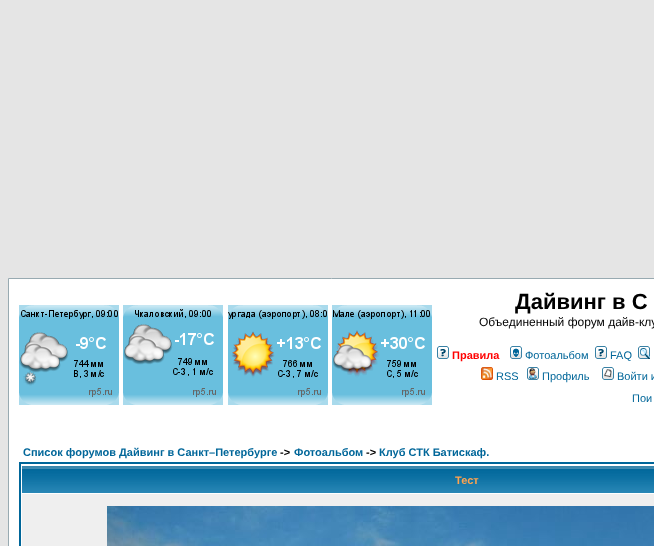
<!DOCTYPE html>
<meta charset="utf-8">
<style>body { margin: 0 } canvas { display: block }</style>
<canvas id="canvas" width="654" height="546"></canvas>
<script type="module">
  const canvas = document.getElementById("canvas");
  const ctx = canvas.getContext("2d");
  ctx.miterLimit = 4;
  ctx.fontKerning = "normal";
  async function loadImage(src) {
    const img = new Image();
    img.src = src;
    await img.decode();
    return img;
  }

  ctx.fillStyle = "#e5e5e5";
  ctx.fillRect(0, 0, 654, 546);
  ctx.fillStyle = "#ffffff";
  ctx.beginPath();
  ctx.rect(8.5, 278.5, 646, 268);
  ctx.fill();
  ctx.strokeStyle = "#98aab1";
  ctx.stroke();
  ctx.drawImage(await loadImage("img1.png"), 19, 305, 100, 100);
  ctx.drawImage(await loadImage("img2.png"), 123, 305, 100, 100);
  ctx.drawImage(await loadImage("img3.png"), 228, 305, 100, 100);
  ctx.drawImage(await loadImage("img4.png"), 332, 305, 100, 100);
  ctx.font = "bold 22px Liberation Sans";
  ctx.fillStyle = "#000000";
  ctx.fillText("Дайвинг в С", 515, 309);
  ctx.font = "12px Liberation Sans";
  ctx.fillText("Объединенный форум дайв-клу", 479, 326);
  ctx.drawImage(await loadImage("img5.png"), 437, 346, 12, 13);
  ctx.font = "bold 11px Liberation Sans";
  ctx.fillStyle = "#ff0000";
  ctx.fillText("Правила", 452, 359);
  ctx.drawImage(await loadImage("img6.png"), 510, 346, 12, 13);
  ctx.font = "11px Liberation Sans";
  ctx.fillStyle = "#006699";
  ctx.fillText("Фотоальбом", 525, 359);
  ctx.drawImage(await loadImage("img5.png"), 595, 346, 12, 13);
  ctx.fillText("FAQ", 610, 359);
  ctx.drawImage(await loadImage("img7.png"), 638, 346, 12, 13);
  ctx.drawImage(await loadImage("img8.png"), 481, 367, 12, 13);
  ctx.fillText("RSS", 496, 380);
  ctx.drawImage(await loadImage("img9.png"), 527, 367, 12, 13);
  ctx.fillText("Профиль", 542, 380);
  ctx.drawImage(await loadImage("img10.png"), 602, 367, 12, 13);
  ctx.fillText("Войти и", 617, 380);
  ctx.fillText("Пои", 632, 402);
  ctx.font = "bold 11px Liberation Sans";
  ctx.fillText("Список форумов Дайвинг в Санкт–Петербурге", 23, 456);
  ctx.fillStyle = "#000000";
  ctx.fillText("->", 280, 456);
  ctx.fillStyle = "#006699";
  ctx.fillText("Фотоальбом", 294, 456);
  ctx.fillStyle = "#000000";
  ctx.fillText("->", 366, 456);
  ctx.fillStyle = "#006699";
  ctx.fillText("Клуб СТК Батискаф.", 379, 456);
  ctx.strokeStyle = "#006699";
  ctx.lineWidth = 2;
  ctx.strokeRect(20, 463, 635, 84);
  ctx.drawImage(await loadImage("img11.png"), 22, 466, 632, 27);
  ctx.fillStyle = "#ffa34f";
  ctx.fillText("Тест", 455, 484);
  ctx.fillStyle = "#efefef";
  ctx.fillRect(22, 494, 632, 52);
  ctx.drawImage(await loadImage("img12.png"), 107, 506, 547, 40);
</script>
